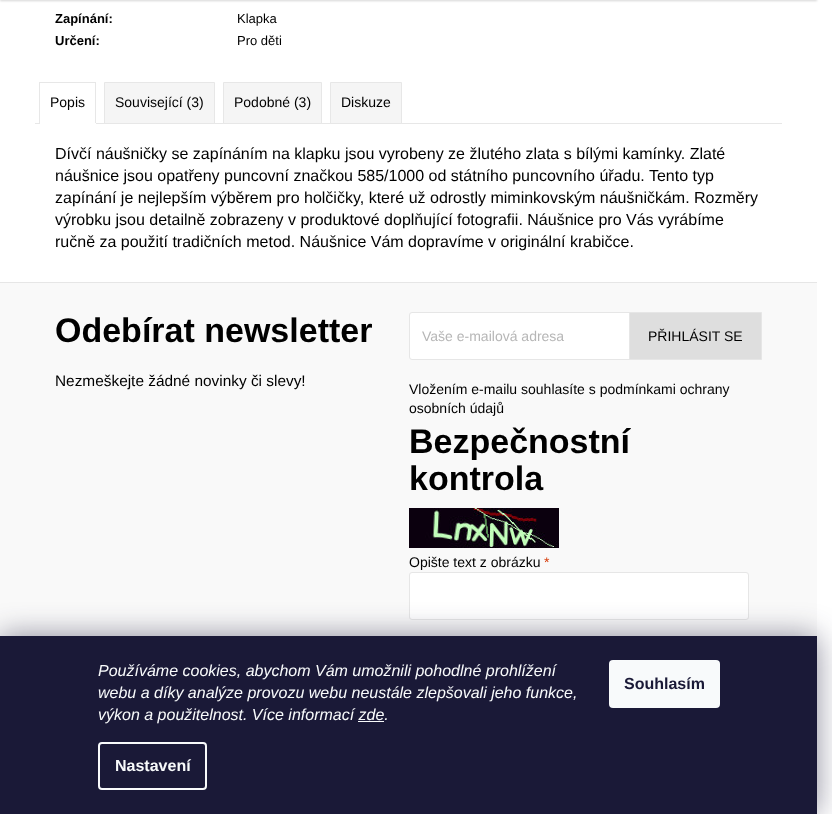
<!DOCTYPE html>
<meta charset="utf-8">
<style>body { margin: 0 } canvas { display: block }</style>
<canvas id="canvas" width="832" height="814"></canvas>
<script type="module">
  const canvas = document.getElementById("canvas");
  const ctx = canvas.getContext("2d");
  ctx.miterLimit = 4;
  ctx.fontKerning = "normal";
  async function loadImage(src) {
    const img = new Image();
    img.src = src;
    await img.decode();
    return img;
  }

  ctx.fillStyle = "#ffffff";
  ctx.fillRect(0, 0, 832, 814);
  ctx.fillStyle = "rgba(0, 0, 0, 0.16)";
  ctx.filter = "blur(1px)";
  ctx.beginPath();
  ctx.rect(0, -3, 817, 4);
  ctx.fill();
  ctx.filter = "none";
  ctx.font = "bold 13px Liberation Sans";
  ctx.fillStyle = "#000000";
  ctx.fillText("Zapínání:", 55, 23);
  ctx.font = "13px Liberation Sans";
  ctx.fillText("Klapka", 237, 23);
  ctx.font = "bold 13px Liberation Sans";
  ctx.fillText("Určení:", 55, 45);
  ctx.font = "13px Liberation Sans";
  ctx.fillText("Pro děti", 237, 45);
  ctx.fillStyle = "#e7e7e7";
  ctx.fillRect(35, 123, 747, 1);
  ctx.fillRect(39, 82, 57, 1);
  ctx.fillRect(95, 82, 1, 42);
  ctx.fillStyle = "#ffffff";
  ctx.fillRect(39, 123, 57, 1);
  ctx.fillStyle = "#e7e7e7";
  ctx.fillRect(39, 82, 1, 42);
  ctx.font = "14px Liberation Sans";
  ctx.fillStyle = "#000000";
  ctx.fillText("Popis", 50, 107);
  ctx.fillStyle = "#f5f5f5";
  ctx.beginPath();
  ctx.rect(104.5, 82.5, 110, 41);
  ctx.fill();
  ctx.strokeStyle = "#e7e7e7";
  ctx.stroke();
  ctx.fillStyle = "#000000";
  ctx.fillText("Související (3)", 115, 107);
  ctx.fillStyle = "#f5f5f5";
  ctx.beginPath();
  ctx.rect(223.5, 82.5, 98, 41);
  ctx.fill();
  ctx.stroke();
  ctx.fillStyle = "#000000";
  ctx.fillText("Podobné (3)", 234, 107);
  ctx.fillStyle = "#f5f5f5";
  ctx.beginPath();
  ctx.rect(330.5, 82.5, 71, 41);
  ctx.fill();
  ctx.stroke();
  ctx.fillStyle = "#000000";
  ctx.fillText("Diskuze", 341, 107);
  ctx.font = "16px Liberation Sans";
  ctx.fillText("Dívčí náušničky se zapínáním na klapku jsou vyrobeny ze žlutého zlata s bílými kamínky. Zlaté", 55, 159);
  ctx.fillText("náušnice jsou opatřeny puncovní značkou 585/1000 od státního puncovního úřadu. Tento typ", 55, 181);
  ctx.fillText("zapínání je nejlepším výběrem pro holčičky, které už odrostly miminkovským náušničkám. Rozměry", 55, 203);
  ctx.fillText("výrobku jsou detailně zobrazeny v produktové doplňující fotografii. Náušnice pro Vás vyrábíme", 55, 225);
  ctx.fillText("ručně za použití tradičních metod. Náušnice Vám dopravíme v originální krabičce.", 55, 247);
  ctx.fillStyle = "#f9f9f9";
  ctx.fillRect(0, 283, 817, 353);
  ctx.fillStyle = "#e6e6e6";
  ctx.fillRect(0, 282, 817, 1);
  ctx.font = "bold 34px Liberation Sans";
  ctx.fillStyle = "#000000";
  ctx.fillText("Odebírat newsletter", 55, 342);
  ctx.font = "15.4px Liberation Sans";
  ctx.fillText("Nezmeškejte žádné novinky či slevy!", 55, 386);
  ctx.fillStyle = "#ffffff";
  ctx.beginPath();
  ctx.roundRect(409.5, 312.5, 352, 47, 2.5);
  ctx.fill();
  ctx.strokeStyle = "#e6e6e6";
  ctx.stroke();
  ctx.font = "14px Liberation Sans";
  ctx.fillStyle = "#b6b6b6";
  ctx.fillText("Vaše e-mailová adresa", 422, 341);
  ctx.fillStyle = "#dedede";
  ctx.beginPath();
  ctx.rect(629.5, 312.5, 132, 47);
  ctx.fill();
  ctx.stroke();
  ctx.fillStyle = "#000000";
  ctx.fillText("PŘIHLÁSIT SE", 648, 341);
  ctx.fillText("Vložením e-mailu souhlasíte s podmínkami ochrany", 409, 394);
  ctx.fillText("osobních údajů", 409, 413);
  ctx.font = "bold 34px Liberation Sans";
  ctx.fillText("Bezpečnostní", 409, 453);
  ctx.fillText("kontrola", 409, 490);
  ctx.drawImage(await loadImage("img1.png"), 409, 508, 150, 40);
  ctx.font = "14px Liberation Sans";
  ctx.fillText("Opište text z obrázku", 409, 567);
  ctx.fillStyle = "#d63500";
  ctx.fillText("*", 544, 567);
  ctx.fillStyle = "#ffffff";
  ctx.beginPath();
  ctx.roundRect(409.5, 572.5, 339, 47, 2.5);
  ctx.fill();
  ctx.stroke();
  ctx.fillStyle = "rgba(27, 25, 57, 0.5)";
  ctx.filter = "blur(15px)";
  ctx.beginPath();
  ctx.rect(0, 636, 817, 178);
  ctx.fill();
  ctx.filter = "none";
  ctx.fillStyle = "#1a1937";
  ctx.fillRect(0, 636, 817, 178);
  ctx.font = "italic 16px Liberation Sans";
  ctx.fillStyle = "#f8fafb";
  ctx.fillText("Používáme cookies, abychom Vám umožnili pohodlné prohlížení", 98, 676);
  ctx.fillText("webu a díky analýze provozu webu neustále zlepšovali jeho funkce,", 98, 698);
  ctx.fillText("výkon a použitelnost. Více informací zde.", 98, 720);
  ctx.fillRect(358, 721, 26, 1);
  ctx.beginPath();
  ctx.roundRect(99, 743, 107, 46, 3);
  ctx.strokeStyle = "#f8fafb";
  ctx.lineWidth = 2;
  ctx.stroke();
  ctx.font = "bold 16px Liberation Sans";
  ctx.fillText("Nastavení", 115, 771);
  ctx.beginPath();
  ctx.roundRect(609, 660, 111, 48, 4);
  ctx.fill();
  ctx.fillStyle = "#1a1937";
  ctx.fillText("Souhlasím", 624, 689);
</script>
